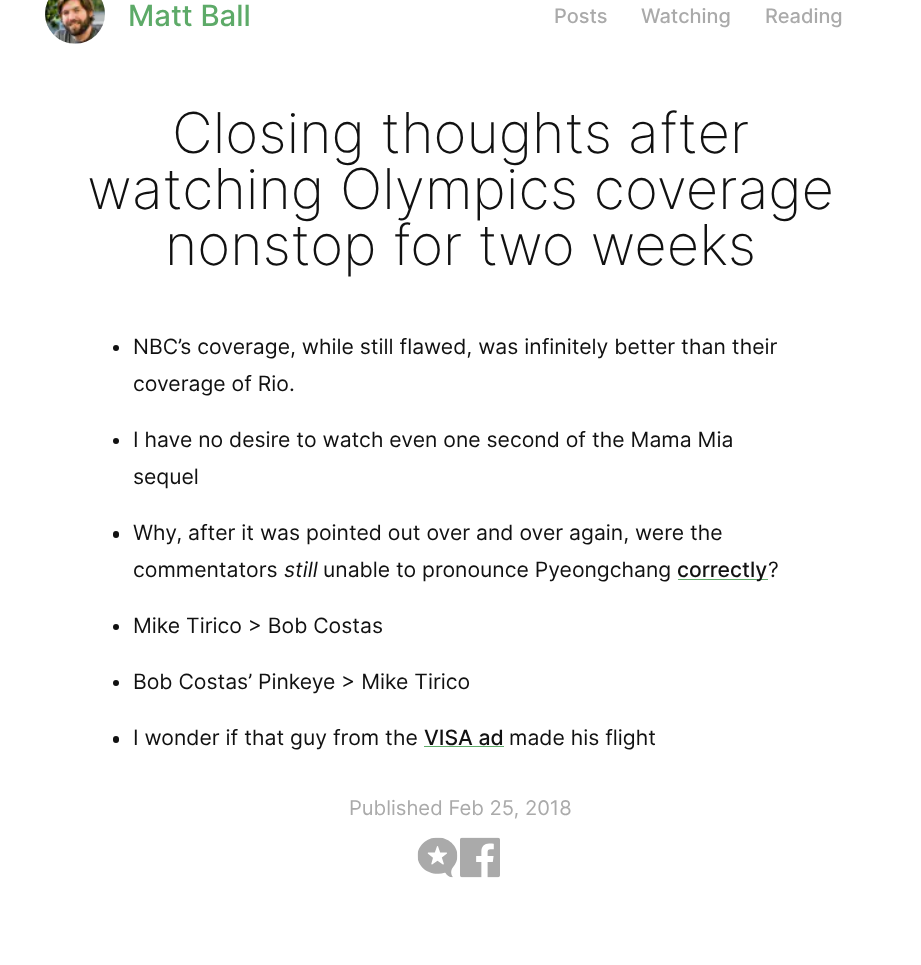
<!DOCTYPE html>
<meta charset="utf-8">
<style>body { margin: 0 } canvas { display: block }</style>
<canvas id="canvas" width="921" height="965"></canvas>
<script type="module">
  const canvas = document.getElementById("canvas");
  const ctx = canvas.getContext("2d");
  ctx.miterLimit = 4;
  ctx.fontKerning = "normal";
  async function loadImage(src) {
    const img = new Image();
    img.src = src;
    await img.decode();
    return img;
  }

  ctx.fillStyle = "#ffffff";
  ctx.fillRect(0, 0, 921, 965);
  ctx.drawImage(await loadImage("img1.png"), 45, 0, 60, 44);
  ctx.font = "500 29.25px Inter";
  ctx.fillStyle = "#5daa68";
  ctx.fillText("Matt Ball", 128, 26);
  ctx.font = "500 20px Inter";
  ctx.fillStyle = "#aaaaaa";
  ctx.fillText("Posts", 554, 23);
  ctx.fillText("Watching", 641, 23);
  ctx.fillText("Reading", 765, 23);
  ctx.font = "200 56.25px Inter";
  ctx.fillStyle = "#111111";
  ctx.fillText("Closing thoughts after", 172, 153);
  ctx.fillText("watching Olympics coverage", 87, 209);
  ctx.fillText("nonstop for two weeks", 165, 265);
  ctx.beginPath();
  ctx.arc(116, 348, 3, 0, Math.PI * 2);
  ctx.fill();
  ctx.font = "21.15px Inter";
  ctx.fillText("NBC’s coverage, while still flawed, was infinitely better than their", 133, 354);
  ctx.fillText("coverage of Rio.", 133, 391);
  ctx.beginPath();
  ctx.arc(116, 441, 3, 0, Math.PI * 2);
  ctx.fill();
  ctx.fillText("I have no desire to watch even one second of the Mama Mia", 133, 447);
  ctx.fillText("sequel", 133, 484);
  ctx.beginPath();
  ctx.roundRect(113, 531, 6, 7, 3);
  ctx.fill();
  ctx.fillText("Why, after it was pointed out over and over again, were the", 133, 540);
  ctx.fillText("commentators", 133, 577);
  ctx.font = "italic 21.15px Inter";
  ctx.fillText("still", 284, 577);
  ctx.font = "21.15px Inter";
  ctx.fillText("unable to pronounce Pyeongchang", 323, 577);
  ctx.fillStyle = "#5daa68";
  ctx.fillRect(678, 579, 90, 1);
  ctx.font = "500 21.15px Inter";
  ctx.fillStyle = "#111111";
  ctx.fillText("correctly", 677, 577);
  ctx.font = "21.15px Inter";
  ctx.fillText("?", 768, 577);
  ctx.beginPath();
  ctx.arc(116, 627, 3, 0, Math.PI * 2);
  ctx.fill();
  ctx.fillText("Mike Tirico > Bob Costas", 133, 633);
  ctx.beginPath();
  ctx.arc(116, 683, 3, 0, Math.PI * 2);
  ctx.fill();
  ctx.fillText("Bob Costas’ Pinkeye > Mike Tirico", 133, 689);
  ctx.beginPath();
  ctx.roundRect(113, 736, 6, 7, 3);
  ctx.fill();
  ctx.fillText("I wonder if that guy from the", 133, 745);
  ctx.font = "500 21.15px Inter";
  ctx.fillText("VISA ad", 424, 745);
  ctx.fillStyle = "#5daa68";
  ctx.fillRect(424, 746, 80, 1);
  ctx.font = "21.15px Inter";
  ctx.fillStyle = "#111111";
  ctx.fillText("made his flight", 509, 745);
  ctx.font = "20.25px Inter";
  ctx.fillStyle = "#aaaaaa";
  ctx.fillText("Published Feb 25, 2018", 349, 815);
  ctx.drawImage(await loadImage("img2.png"), 417, 837, 41, 41);
  ctx.drawImage(await loadImage("img3.png"), 460, 837, 40, 41);
</script>
